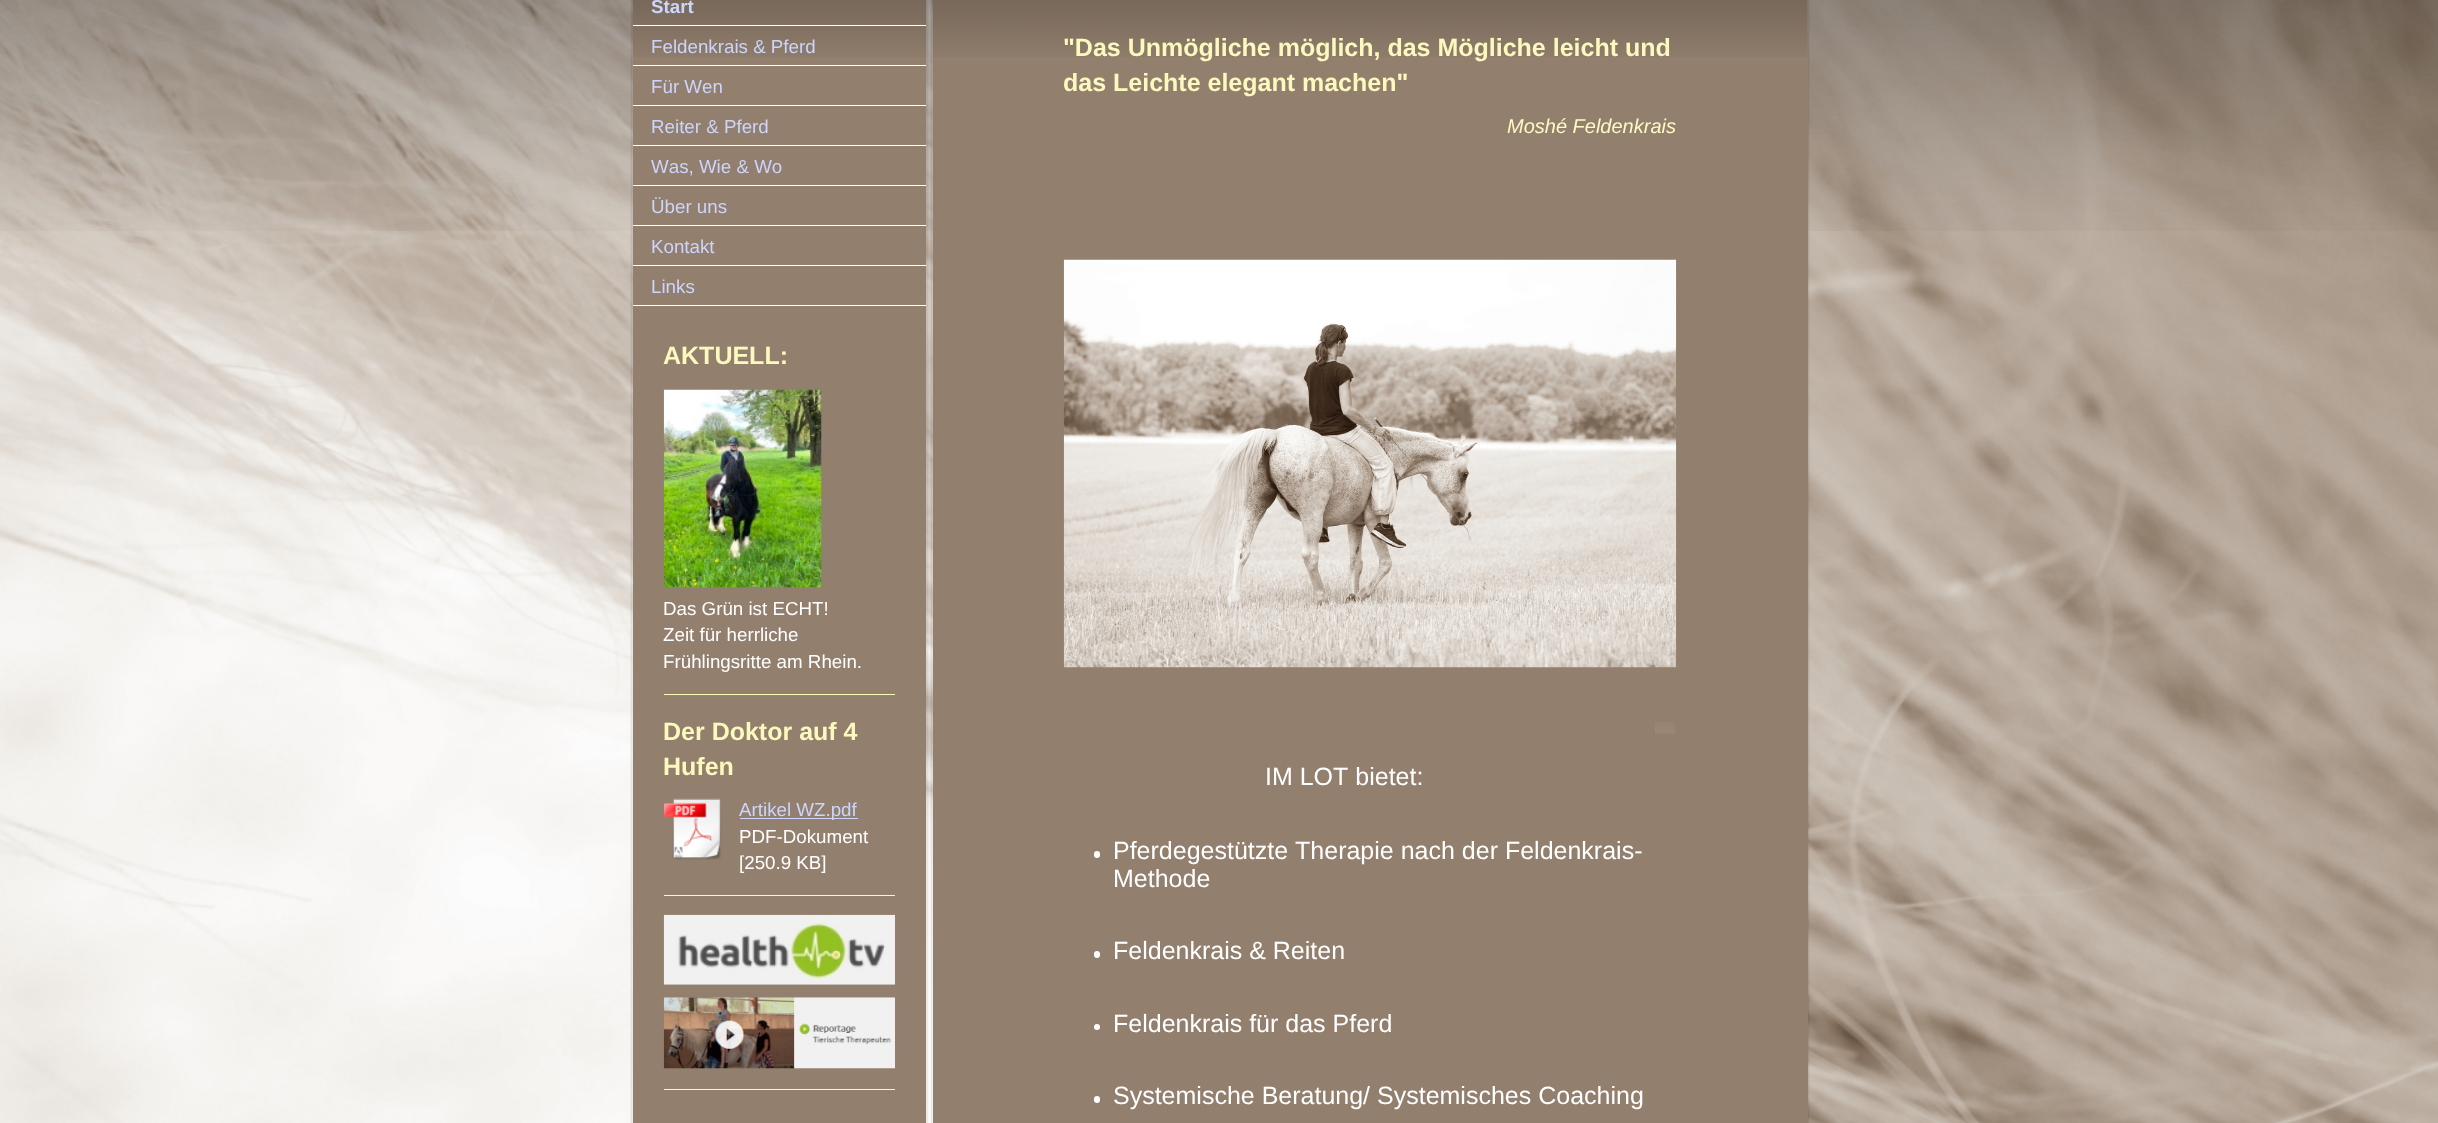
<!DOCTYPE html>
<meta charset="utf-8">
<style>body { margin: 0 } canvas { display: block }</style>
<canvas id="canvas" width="2438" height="1123"></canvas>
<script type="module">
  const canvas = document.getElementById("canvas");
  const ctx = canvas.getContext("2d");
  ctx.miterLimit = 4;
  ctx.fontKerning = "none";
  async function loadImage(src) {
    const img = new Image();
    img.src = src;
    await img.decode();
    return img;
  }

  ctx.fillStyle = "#ffffff";
  ctx.fillRect(0, 0, 2438, 1123);
  ctx.drawImage(await loadImage("img1.png"), 0, 0, 2438, 1123);
  ctx.drawImage(await loadImage("img2.png"), 0, 0, 2438, 231);
  ctx.drawImage(await loadImage("img3.png"), 630, 0, 299, 1123);
  ctx.fillStyle = "#927f6e";
  ctx.fillRect(633, 0, 293, 1123);
  ctx.drawImage(await loadImage("img4.png"), 632, 0, 295, 57);
  ctx.fillStyle = "#ffffff";
  ctx.fillRect(633, 25, 293, 1);
  ctx.font = "bold 18.75px Liberation Sans";
  ctx.fillStyle = "#ccd5fc";
  ctx.fillText("Start", 651, 13);
  ctx.fillStyle = "#ffffff";
  ctx.fillRect(633, 65, 293, 1);
  ctx.font = "18.75px Liberation Sans";
  ctx.fillStyle = "#ccd5fc";
  ctx.fillText("Feldenkrais & Pferd", 651, 53);
  ctx.fillStyle = "#ffffff";
  ctx.fillRect(633, 105, 293, 1);
  ctx.fillStyle = "#ccd5fc";
  ctx.fillText("Für Wen", 651, 93);
  ctx.fillStyle = "#ffffff";
  ctx.fillRect(633, 145, 293, 1);
  ctx.fillStyle = "#ccd5fc";
  ctx.fillText("Reiter & Pferd", 651, 133);
  ctx.fillStyle = "#ffffff";
  ctx.fillRect(633, 185, 293, 1);
  ctx.fillStyle = "#ccd5fc";
  ctx.fillText("Was, Wie & Wo", 651, 173);
  ctx.fillStyle = "#ffffff";
  ctx.fillRect(633, 225, 293, 1);
  ctx.fillStyle = "#ccd5fc";
  ctx.fillText("Über uns", 651, 213);
  ctx.fillStyle = "#ffffff";
  ctx.fillRect(633, 265, 293, 1);
  ctx.fillStyle = "#ccd5fc";
  ctx.fillText("Kontakt", 651, 253);
  ctx.fillStyle = "#ffffff";
  ctx.fillRect(633, 305, 293, 1);
  ctx.fillStyle = "#ccd5fc";
  ctx.fillText("Links", 651, 293);
  ctx.font = "bold 25px Liberation Sans";
  ctx.fillStyle = "#fbf9be";
  ctx.fillText("AKTUELL:", 663, 364);
  ctx.drawImage(await loadImage("img5.png"), 663, 389, 159, 199);
  ctx.font = "18.75px Liberation Sans";
  ctx.fillStyle = "#ffffff";
  ctx.fillText("Das Grün ist ECHT!", 663, 615);
  ctx.fillText("Zeit für herrliche", 663, 641);
  ctx.fillText("Frühlingsritte am Rhein.", 663, 668);
  ctx.fillStyle = "#fbf9be";
  ctx.fillRect(664, 694, 231, 1);
  ctx.font = "bold 25px Liberation Sans";
  ctx.fillText("Der Doktor auf 4", 663, 740);
  ctx.fillText("Hufen", 663, 775);
  ctx.drawImage(await loadImage("img6.png"), 663, 798, 59, 62);
  ctx.fillStyle = "#ccd5fc";
  ctx.fillRect(740, 818, 118, 1);
  ctx.font = "18.75px Liberation Sans";
  ctx.fillText("Artikel WZ.pdf", 739, 816);
  ctx.fillStyle = "#ffffff";
  ctx.fillText("PDF-Dokument", 739, 843);
  ctx.fillText("[250.9 KB]", 739, 869);
  ctx.fillStyle = "#fbf9be";
  ctx.fillRect(664, 895, 231, 1);
  ctx.drawImage(await loadImage("img7.png"), 663, 914, 232, 71);
  ctx.drawImage(await loadImage("img8.png"), 663, 997, 232, 72);
  ctx.fillRect(664, 1089, 231, 1);
  ctx.drawImage(await loadImage("img9.png"), 930, 0, 880, 1123);
  ctx.fillStyle = "#927f6e";
  ctx.fillRect(933, 0, 875, 1123);
  ctx.drawImage(await loadImage("img10.png"), 932, 0, 876, 57);
  ctx.font = "bold 25px Liberation Sans";
  ctx.fillStyle = "#fbf9be";
  ctx.fillText("\"Das Unmögliche möglich, das Mögliche leicht und", 1063, 56);
  ctx.fillText("das Leichte elegant machen\"", 1063, 91);
  ctx.font = "italic 20px Liberation Sans";
  ctx.fillStyle = "#fff9c4";
  ctx.fillText("Moshé Feldenkrais", 1507, 133);
  ctx.drawImage(await loadImage("img11.png"), 1063, 259, 614, 409);
  ctx.drawImage(await loadImage("img12.png"), 1655, 722, 20, 12);
  ctx.font = "25px Liberation Sans";
  ctx.fillStyle = "#ffffff";
  ctx.fillText("IM LOT bietet:", 1265, 785);
  ctx.beginPath();
  ctx.roundRect(1094, 851, 6, 7, 3);
  ctx.fill();
  ctx.fillText("Pferdegestützte Therapie nach der Feldenkrais-", 1113, 859);
  ctx.fillText("Methode", 1113, 887);
  ctx.beginPath();
  ctx.roundRect(1094, 951, 6, 7, 3);
  ctx.fill();
  ctx.fillText("Feldenkrais & Reiten", 1113, 959);
  ctx.beginPath();
  ctx.arc(1097, 1027, 3, 0, Math.PI * 2);
  ctx.fill();
  ctx.fillText("Feldenkrais für das Pferd", 1113, 1032);
  ctx.beginPath();
  ctx.roundRect(1094, 1096, 6, 7, 3);
  ctx.fill();
  ctx.fillText("Systemische Beratung/ Systemisches Coaching", 1113, 1104);
</script>
